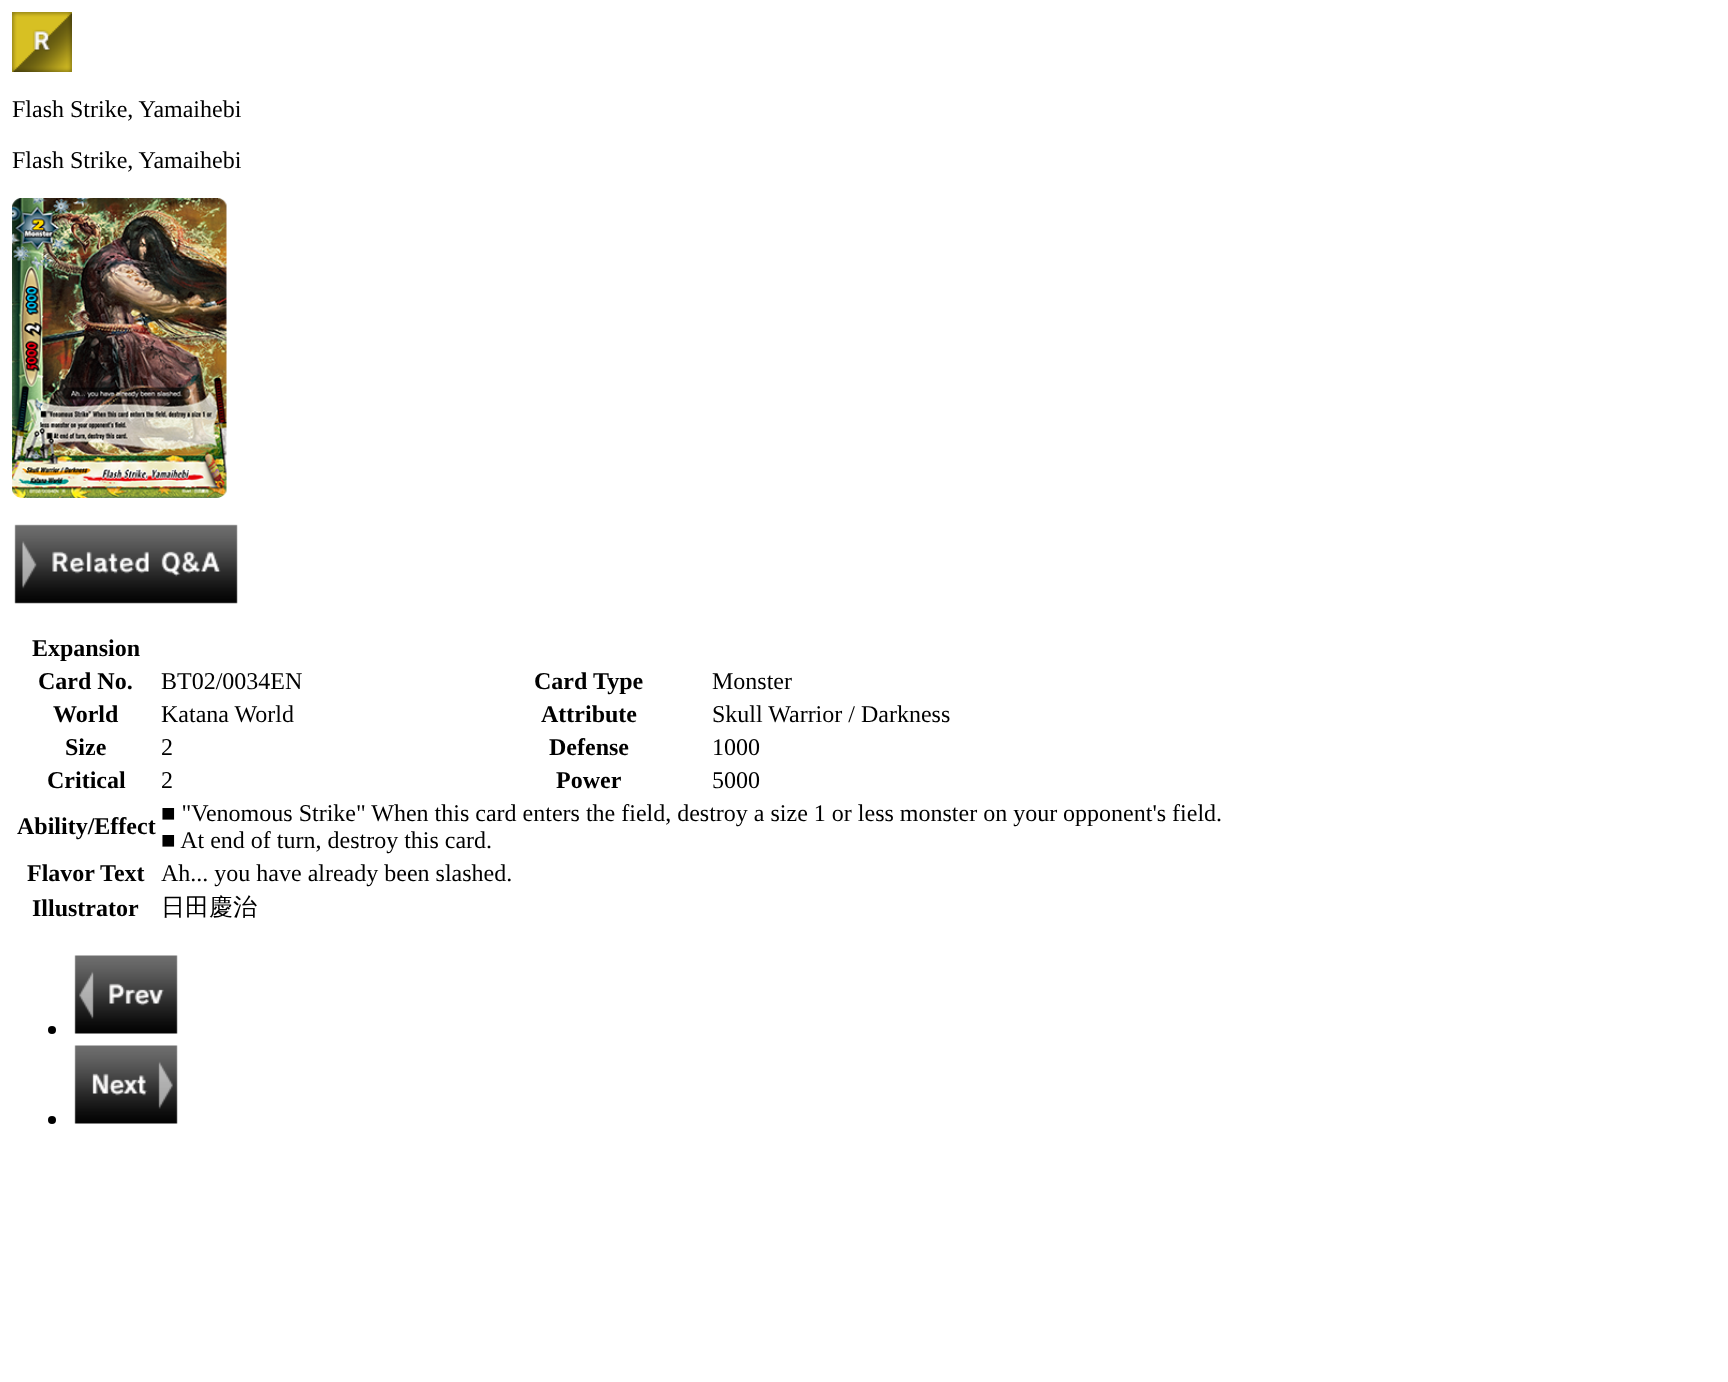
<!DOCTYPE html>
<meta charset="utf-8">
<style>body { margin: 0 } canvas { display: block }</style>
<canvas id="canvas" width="1728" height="1382"></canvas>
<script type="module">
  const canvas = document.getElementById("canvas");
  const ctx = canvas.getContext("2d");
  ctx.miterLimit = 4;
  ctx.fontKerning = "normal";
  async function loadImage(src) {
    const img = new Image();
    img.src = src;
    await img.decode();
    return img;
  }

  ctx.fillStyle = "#ffffff";
  ctx.fillRect(0, 0, 1728, 1382);
  ctx.drawImage(await loadImage("img1.png"), 12, 12, 60, 60);
  ctx.font = "24px Liberation Serif";
  ctx.fillStyle = "#000000";
  ctx.fillText("Flash Strike, Yamaihebi", 12, 117);
  ctx.fillText("Flash Strike, Yamaihebi", 12, 168);
  ctx.drawImage(await loadImage("img2.png"), 12, 198, 215, 300);
  ctx.drawImage(await loadImage("img3.png"), 14, 524, 224, 80);
  ctx.font = "bold 24px Liberation Serif";
  ctx.fillText("Expansion", 32, 656);
  ctx.fillText("Card No.", 38, 689);
  ctx.font = "24px Liberation Serif";
  ctx.fillText("BT02/0034EN", 161, 689);
  ctx.font = "bold 24px Liberation Serif";
  ctx.fillText("Card Type", 534, 689);
  ctx.font = "24px Liberation Serif";
  ctx.fillText("Monster", 712, 689);
  ctx.font = "bold 24px Liberation Serif";
  ctx.fillText("World", 53, 722);
  ctx.font = "24px Liberation Serif";
  ctx.fillText("Katana World", 161, 722);
  ctx.font = "bold 24px Liberation Serif";
  ctx.fillText("Attribute", 541, 722);
  ctx.font = "24px Liberation Serif";
  ctx.fillText("Skull Warrior / Darkness", 712, 722);
  ctx.font = "bold 24px Liberation Serif";
  ctx.fillText("Size", 65, 755);
  ctx.font = "24px Liberation Serif";
  ctx.fillText("2", 161, 755);
  ctx.font = "bold 24px Liberation Serif";
  ctx.fillText("Defense", 549, 755);
  ctx.font = "24px Liberation Serif";
  ctx.fillText("1000", 712, 755);
  ctx.font = "bold 24px Liberation Serif";
  ctx.fillText("Critical", 47, 788);
  ctx.font = "24px Liberation Serif";
  ctx.fillText("2", 161, 788);
  ctx.font = "bold 24px Liberation Serif";
  ctx.fillText("Power", 556, 788);
  ctx.font = "24px Liberation Serif";
  ctx.fillText("5000", 712, 788);
  ctx.font = "bold 24px Liberation Serif";
  ctx.fillText("Ability/Effect", 17, 834);
  ctx.font = "24px Liberation Serif";
  ctx.fillText("■ \"Venomous Strike\" When this card enters the field, destroy a size 1 or less monster on your opponent's field.", 161, 821);
  ctx.fillText("■ At end of turn, destroy this card.", 161, 848);
  ctx.font = "bold 24px Liberation Serif";
  ctx.fillText("Flavor Text", 27, 881);
  ctx.font = "24px Liberation Serif";
  ctx.fillText("Ah... you have already been slashed.", 161, 881);
  ctx.font = "bold 24px Liberation Serif";
  ctx.fillText("Illustrator", 32, 916);
  ctx.font = "500 24px WenQuanYi Zen Hei";
  ctx.fillText("日田慶治", 161, 915);
  ctx.beginPath();
  ctx.arc(52, 1030, 4, 0, Math.PI * 2);
  ctx.fill();
  ctx.drawImage(await loadImage("img4.png"), 74, 955, 104, 79);
  ctx.beginPath();
  ctx.arc(52, 1120, 4, 0, Math.PI * 2);
  ctx.fill();
  ctx.drawImage(await loadImage("img5.png"), 74, 1045, 104, 79);
</script>
